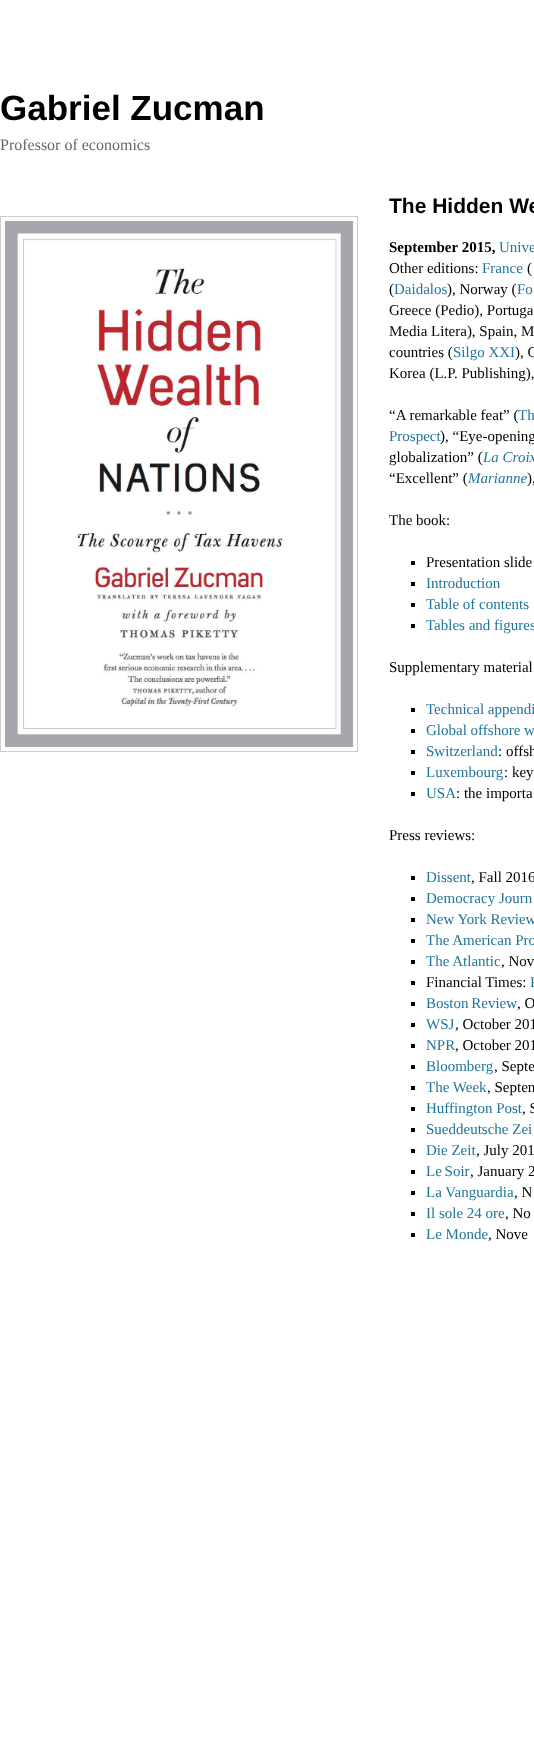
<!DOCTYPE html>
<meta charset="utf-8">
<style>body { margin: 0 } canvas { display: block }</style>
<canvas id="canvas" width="534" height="1737"></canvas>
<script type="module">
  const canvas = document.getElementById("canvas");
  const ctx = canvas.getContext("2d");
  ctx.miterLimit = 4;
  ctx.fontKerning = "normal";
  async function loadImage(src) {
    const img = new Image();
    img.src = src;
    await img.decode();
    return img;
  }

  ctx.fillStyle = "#ffffff";
  ctx.fillRect(0, 0, 534, 1737);
  ctx.font = "bold 35px Liberation Sans";
  ctx.fillStyle = "#000000";
  ctx.fillText("Gabriel Zucman", 0, 120);
  ctx.font = "16px Liberation Serif";
  ctx.fillStyle = "#666666";
  ctx.fillText("Professor of economics", 0, 150);
  ctx.strokeStyle = "#cccccc";
  ctx.strokeRect(0.5, 216.5, 357, 535);
  ctx.drawImage(await loadImage("img1.png"), 5, 221, 348, 526);
  ctx.font = "bold 21px Liberation Sans";
  ctx.fillStyle = "#000000";
  ctx.fillText("The Hidden We", 389, 213);
  ctx.font = "bold 15px Liberation Serif";
  ctx.fillText("September 2015,", 389, 252);
  ctx.font = "15px Liberation Serif";
  ctx.fillStyle = "#21759b";
  ctx.fillText("Unive", 499, 252);
  ctx.fillStyle = "#000000";
  ctx.fillText("Other editions:", 389, 273);
  ctx.fillStyle = "#21759b";
  ctx.fillText("France", 482, 273);
  ctx.fillStyle = "#000000";
  ctx.fillText("(", 527, 273);
  ctx.fillText("(", 389, 294);
  ctx.fillStyle = "#21759b";
  ctx.fillText("Daidalos", 394, 294);
  ctx.fillStyle = "#000000";
  ctx.fillText("), Norway (", 447, 294);
  ctx.fillStyle = "#21759b";
  ctx.fillText("Fo", 517, 294);
  ctx.fillStyle = "#000000";
  ctx.fillText("Greece (Pedio), Portuga", 389, 315);
  ctx.fillText("Media Litera), Spain, M", 389, 336);
  ctx.fillText("countries (", 389, 357);
  ctx.fillStyle = "#21759b";
  ctx.fillText("Silgo XXI", 453, 357);
  ctx.fillStyle = "#000000";
  ctx.fillText("), C", 515, 357);
  ctx.fillText("Korea (L.P. Publishing),", 389, 378);
  ctx.fillText("“A remarkable feat” (", 389, 420);
  ctx.fillStyle = "#21759b";
  ctx.fillText("Th", 518, 420);
  ctx.fillText("Prospect", 389, 441);
  ctx.fillStyle = "#000000";
  ctx.fillText("), “Eye-opening", 440, 441);
  ctx.fillText("globalization” (", 389, 462);
  ctx.font = "italic 15px Liberation Serif";
  ctx.fillStyle = "#21759b";
  ctx.fillText("La Croix", 483, 462);
  ctx.font = "15px Liberation Serif";
  ctx.fillStyle = "#000000";
  ctx.fillText("“Excellent” (", 389, 483);
  ctx.font = "italic 15px Liberation Serif";
  ctx.fillStyle = "#21759b";
  ctx.fillText("Marianne", 468, 483);
  ctx.font = "15px Liberation Serif";
  ctx.fillStyle = "#000000";
  ctx.fillText("),", 527, 483);
  ctx.fillText("The book:", 389, 525);
  ctx.fillRect(411, 561, 4, 4);
  ctx.fillText("Presentation slide", 426, 567);
  ctx.fillRect(411, 582, 4, 4);
  ctx.fillStyle = "#21759b";
  ctx.fillText("Introduction", 426, 588);
  ctx.fillStyle = "#000000";
  ctx.fillRect(411, 603, 4, 4);
  ctx.fillStyle = "#21759b";
  ctx.fillText("Table of contents", 426, 609);
  ctx.fillStyle = "#000000";
  ctx.fillRect(411, 624, 4, 4);
  ctx.fillStyle = "#21759b";
  ctx.fillText("Tables and figures", 426, 630);
  ctx.fillStyle = "#000000";
  ctx.fillText("Supplementary material", 389, 672);
  ctx.fillRect(411, 708, 4, 4);
  ctx.fillStyle = "#21759b";
  ctx.fillText("Technical appendi", 426, 714);
  ctx.fillStyle = "#000000";
  ctx.fillRect(411, 729, 4, 4);
  ctx.fillStyle = "#21759b";
  ctx.fillText("Global offshore w", 426, 735);
  ctx.fillStyle = "#000000";
  ctx.fillRect(411, 750, 4, 4);
  ctx.fillStyle = "#21759b";
  ctx.fillText("Switzerland", 426, 756);
  ctx.fillStyle = "#000000";
  ctx.fillText(": offsh", 498, 756);
  ctx.fillRect(411, 771, 4, 4);
  ctx.fillStyle = "#21759b";
  ctx.fillText("Luxembourg", 426, 777);
  ctx.fillStyle = "#000000";
  ctx.fillText(": key", 504, 777);
  ctx.fillRect(411, 792, 4, 4);
  ctx.fillStyle = "#21759b";
  ctx.fillText("USA", 426, 798);
  ctx.fillStyle = "#000000";
  ctx.fillText(": the importa", 456, 798);
  ctx.fillText("Press reviews:", 389, 840);
  ctx.fillRect(411, 876, 4, 4);
  ctx.fillStyle = "#21759b";
  ctx.fillText("Dissent", 426, 882);
  ctx.fillStyle = "#000000";
  ctx.fillText(", Fall 2016", 471, 882);
  ctx.fillRect(411, 897, 4, 4);
  ctx.fillStyle = "#21759b";
  ctx.fillText("Democracy Journ", 426, 903);
  ctx.fillStyle = "#000000";
  ctx.fillRect(411, 918, 4, 4);
  ctx.fillStyle = "#21759b";
  ctx.fillText("New York Review", 426, 924);
  ctx.fillStyle = "#000000";
  ctx.fillRect(411, 939, 4, 4);
  ctx.fillStyle = "#21759b";
  ctx.fillText("The American Pro", 426, 945);
  ctx.fillStyle = "#000000";
  ctx.fillRect(411, 960, 4, 4);
  ctx.fillStyle = "#21759b";
  ctx.fillText("The Atlantic", 426, 966);
  ctx.fillStyle = "#000000";
  ctx.fillText(", Nov", 501, 966);
  ctx.fillRect(411, 981, 4, 4);
  ctx.fillText("Financial Times:", 426, 987);
  ctx.fillStyle = "#21759b";
  ctx.fillText("F", 530, 987);
  ctx.fillStyle = "#000000";
  ctx.fillRect(411, 1002, 4, 4);
  ctx.wordSpacing = "-1px";
  ctx.fillStyle = "#21759b";
  ctx.fillText("Boston Review", 426, 1008);
  ctx.wordSpacing = "0px";
  ctx.fillStyle = "#000000";
  ctx.fillText(", O", 517, 1008);
  ctx.fillRect(411, 1023, 4, 4);
  ctx.fillStyle = "#21759b";
  ctx.fillText("WSJ", 426, 1029);
  ctx.fillStyle = "#000000";
  ctx.fillText(", October 201", 455, 1029);
  ctx.fillRect(411, 1044, 4, 4);
  ctx.fillStyle = "#21759b";
  ctx.fillText("NPR", 426, 1050);
  ctx.fillStyle = "#000000";
  ctx.fillText(", October 201", 455, 1050);
  ctx.fillRect(411, 1065, 4, 4);
  ctx.fillStyle = "#21759b";
  ctx.fillText("Bloomberg", 426, 1071);
  ctx.fillStyle = "#000000";
  ctx.fillText(", Septe", 494, 1071);
  ctx.fillRect(411, 1086, 4, 4);
  ctx.fillStyle = "#21759b";
  ctx.fillText("The Week", 426, 1092);
  ctx.fillStyle = "#000000";
  ctx.fillText(", Septem", 487, 1092);
  ctx.fillRect(411, 1107, 4, 4);
  ctx.fillStyle = "#21759b";
  ctx.fillText("Huffington Post", 426, 1113);
  ctx.fillStyle = "#000000";
  ctx.fillText(", S", 522, 1113);
  ctx.fillRect(411, 1128, 4, 4);
  ctx.fillStyle = "#21759b";
  ctx.fillText("Sueddeutsche Zei", 426, 1134);
  ctx.fillStyle = "#000000";
  ctx.fillRect(411, 1149, 4, 4);
  ctx.fillStyle = "#21759b";
  ctx.fillText("Die Zeit", 426, 1155);
  ctx.fillStyle = "#000000";
  ctx.fillText(", July 201", 476, 1155);
  ctx.fillRect(411, 1170, 4, 4);
  ctx.wordSpacing = "-1px";
  ctx.fillStyle = "#21759b";
  ctx.fillText("Le Soir", 426, 1176);
  ctx.wordSpacing = "0px";
  ctx.fillStyle = "#000000";
  ctx.fillText(", January 2", 470, 1176);
  ctx.fillRect(411, 1191, 4, 4);
  ctx.fillStyle = "#21759b";
  ctx.fillText("La Vanguardia", 426, 1197);
  ctx.fillStyle = "#000000";
  ctx.fillText(", N", 514, 1197);
  ctx.fillRect(411, 1212, 4, 4);
  ctx.fillStyle = "#21759b";
  ctx.fillText("Il sole 24 ore", 426, 1218);
  ctx.fillStyle = "#000000";
  ctx.fillText(", No", 505, 1218);
  ctx.fillRect(411, 1233, 4, 4);
  ctx.fillStyle = "#21759b";
  ctx.fillText("Le Monde", 426, 1239);
  ctx.fillStyle = "#000000";
  ctx.fillText(", Nove", 488, 1239);
</script>
